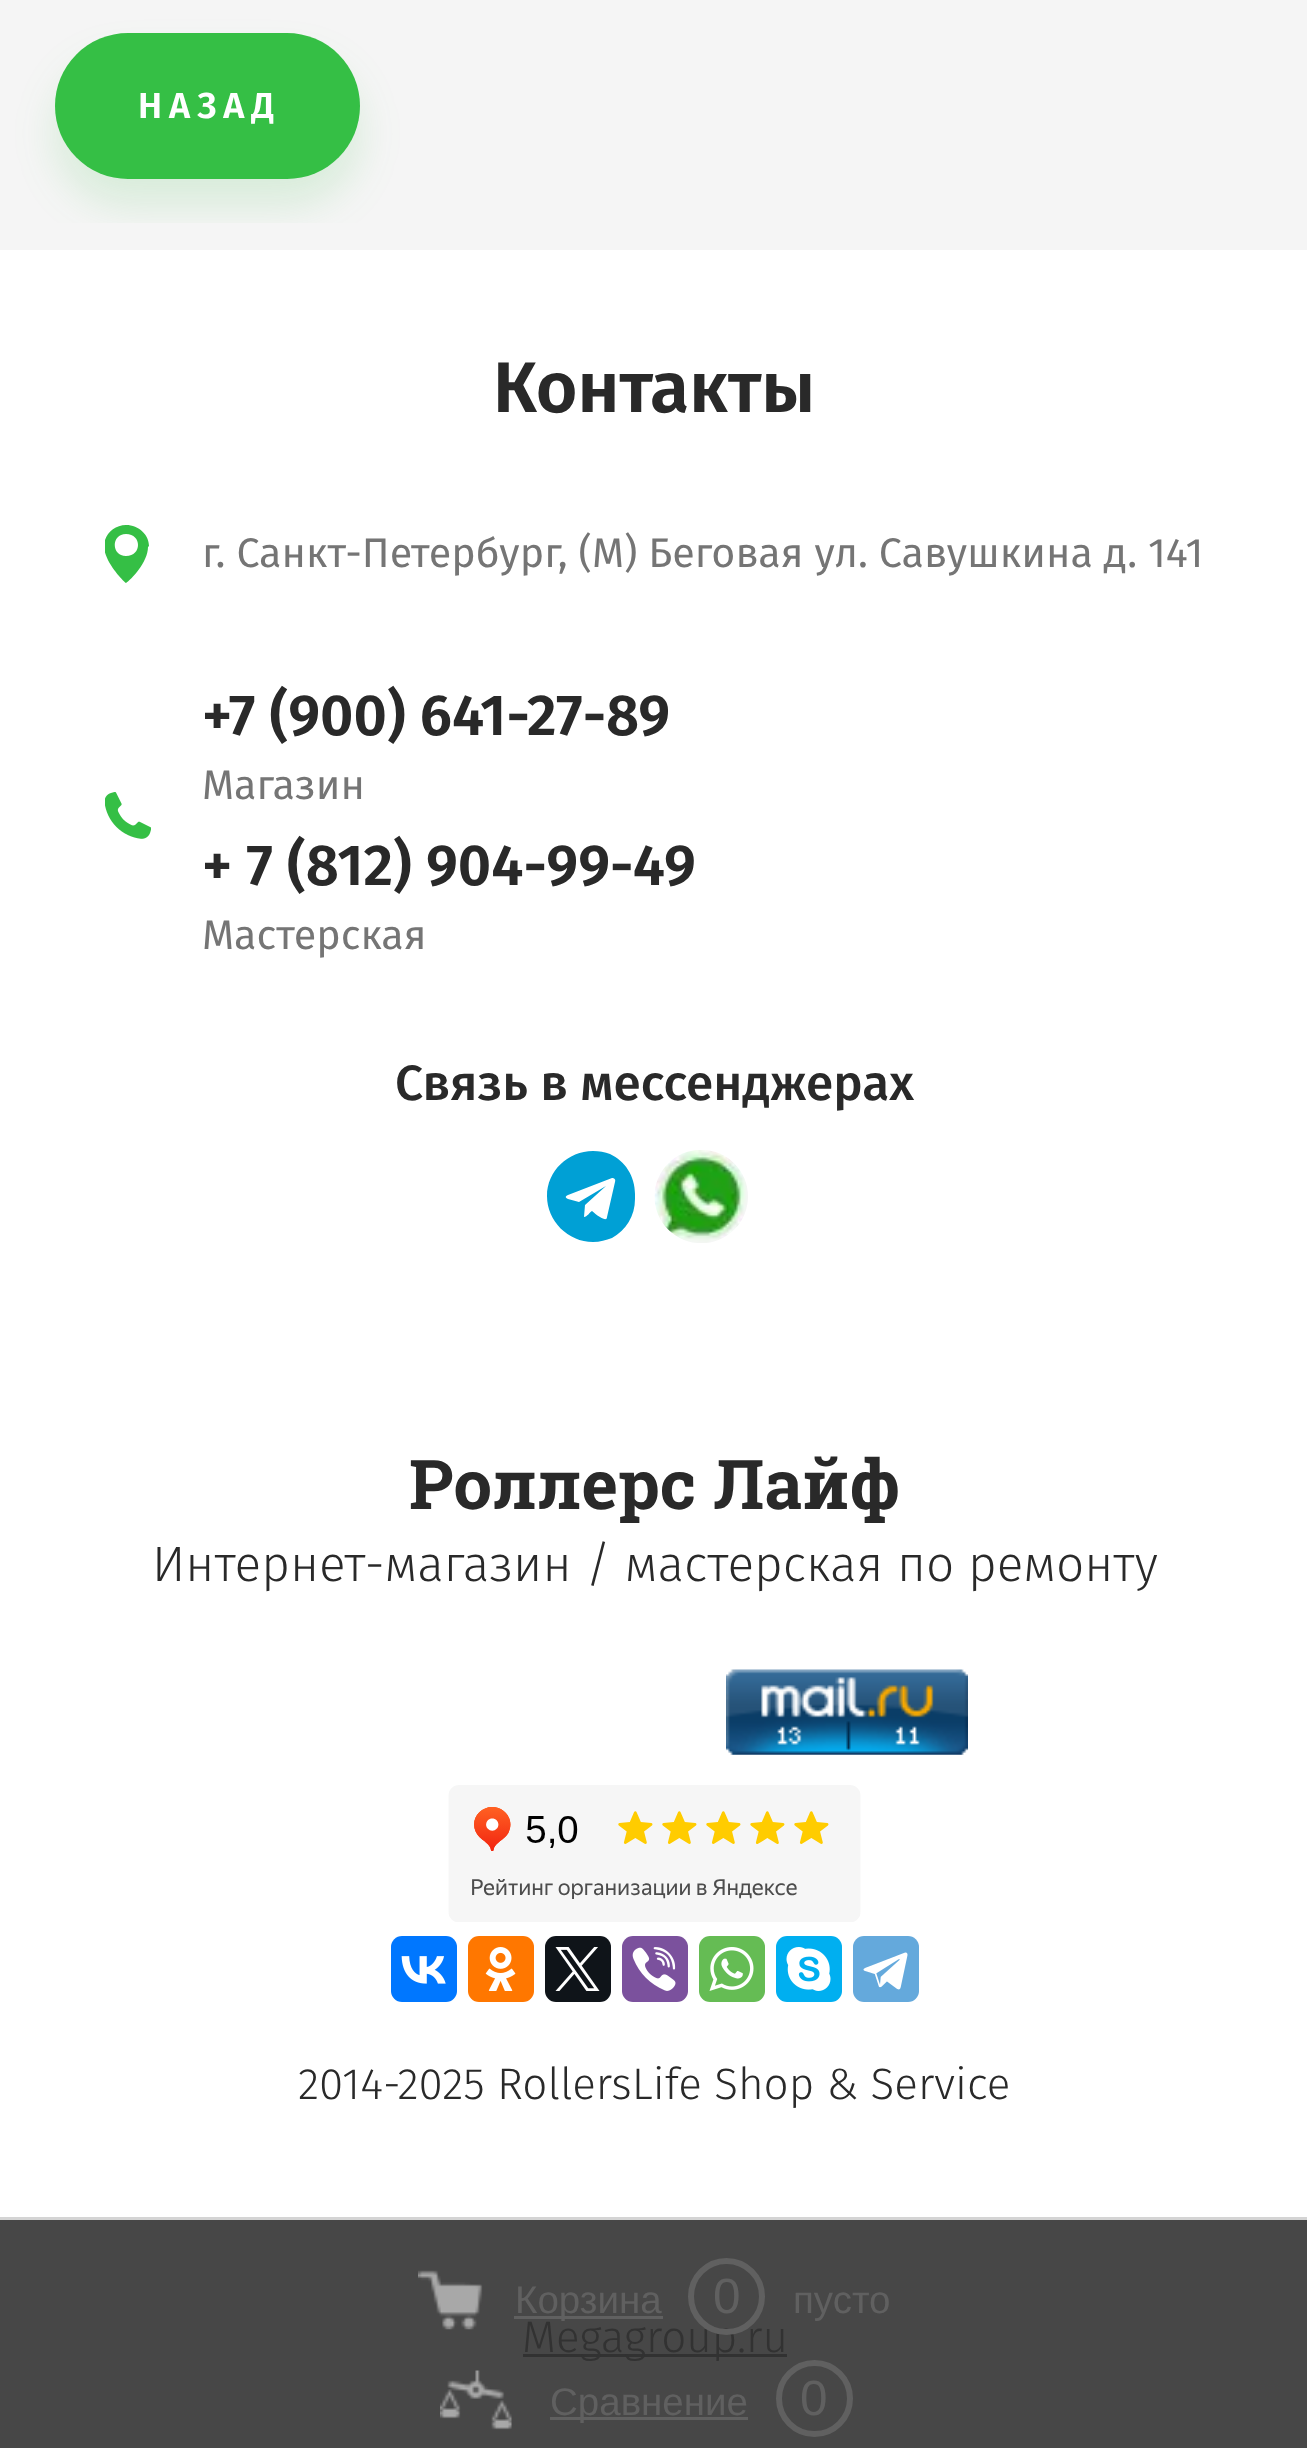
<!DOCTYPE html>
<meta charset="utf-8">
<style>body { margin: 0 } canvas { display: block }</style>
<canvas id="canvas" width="1307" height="2448"></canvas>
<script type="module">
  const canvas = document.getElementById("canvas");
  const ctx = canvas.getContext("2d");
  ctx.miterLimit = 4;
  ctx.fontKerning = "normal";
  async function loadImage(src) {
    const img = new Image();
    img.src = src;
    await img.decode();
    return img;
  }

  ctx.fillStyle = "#f5f5f5";
  ctx.fillRect(0, 0, 1307, 2448);
  ctx.fillStyle = "#ffffff";
  ctx.fillRect(0, 250, 1307, 1967);
  ctx.save();
  ctx.beginPath();
  ctx.rect(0, 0, 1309, 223);
  ctx.clip();
  ctx.fillStyle = "rgba(53, 191, 69, 0.15)";
  ctx.filter = "blur(20.5px)";
  ctx.beginPath();
  ctx.roundRect(55, 61, 305, 145, 72.5);
  ctx.fill();
  ctx.filter = "none";
  ctx.restore();
  ctx.fillStyle = "#35bf45";
  ctx.beginPath();
  ctx.roundRect(55, 33, 305, 146, 73);
  ctx.fill();
  ctx.letterSpacing = "7px";
  ctx.font = "600 36px Fira Sans";
  ctx.fillStyle = "#ffffff";
  ctx.fillText("НАЗАД", 138, 118);
  ctx.fillStyle = "#d4d4d4";
  ctx.fillRect(0, 2217, 1307, 3);
  ctx.fillStyle = "#474747";
  ctx.fillRect(0, 2220, 1307, 228);
  ctx.drawImage(await loadImage("img1.png"), 418, 2270, 65, 60);
  ctx.fillStyle = "#606060";
  ctx.fillRect(514, 2316, 149, 3);
  ctx.letterSpacing = "0px";
  ctx.font = "38.5px Liberation Sans";
  ctx.fillText("Корзина", 515, 2313);
  ctx.fillStyle = "#323232";
  ctx.fillRect(523, 2354, 264, 3);
  ctx.font = "300 44px Fira Sans";
  ctx.fillText("Megagroup.ru", 522, 2352);
  ctx.beginPath();
  ctx.arc(726.5, 2296.5, 35.5, 0, Math.PI * 2);
  ctx.strokeStyle = "#606060";
  ctx.lineWidth = 6;
  ctx.stroke();
  ctx.font = "49.5px Liberation Sans";
  ctx.fillStyle = "#606060";
  ctx.fillText("0", 713, 2313);
  ctx.font = "38.5px Liberation Sans";
  ctx.fillText("пусто", 793, 2313);
  ctx.drawImage(await loadImage("img2.png"), 440, 2370, 72, 60);
  ctx.fillRect(550, 2417, 198, 3);
  ctx.fillText("Сравнение", 550, 2415);
  ctx.beginPath();
  ctx.arc(814.5, 2398.5, 35.5, 0, Math.PI * 2);
  ctx.stroke();
  ctx.font = "49.5px Liberation Sans";
  ctx.fillText("0", 800, 2415);
  ctx.font = "600 71.5px Fira Sans";
  ctx.fillStyle = "#292929";
  ctx.fillText("Контакты", 493, 412);
  ctx.save();
  ctx.beginPath();
  ctx.rect(105, 525, 44, 58);
  ctx.clip();
  ctx.fillStyle = "#35bf45";
  ctx.beginPath();
  ctx.moveTo(126, 583);
  ctx.bezierCurveTo(131, 580, 148, 562, 148, 547);
  ctx.lineTo(149, 546);
  ctx.bezierCurveTo(149, 535, 139, 525, 126, 525);
  ctx.bezierCurveTo(114, 525, 104, 535, 104, 546);
  ctx.lineTo(104, 547);
  ctx.bezierCurveTo(105, 562, 122, 580, 126, 583);
  ctx.closePath();
  ctx.moveTo(126, 534);
  ctx.bezierCurveTo(142, 534, 142, 556, 126, 556);
  ctx.bezierCurveTo(111, 556, 111, 534, 126, 534);
  ctx.closePath();
  ctx.fill("evenodd");
  ctx.restore();
  ctx.font = "41.25px Fira Sans";
  ctx.fillStyle = "#757575";
  ctx.fillText("г. Санкт-Петербург, (М) Беговая ул. Савушкина д. 141", 202, 567);
  ctx.font = "600 57.75px Fira Sans";
  ctx.fillStyle = "#292929";
  ctx.fillText("+7 (900) 641-27-89", 202, 735);
  ctx.font = "41.25px Fira Sans";
  ctx.fillStyle = "#757575";
  ctx.fillText("Магазин", 202, 799);
  ctx.drawImage(await loadImage("img3.png"), 105, 792, 46, 47);
  ctx.font = "600 57.75px Fira Sans";
  ctx.fillStyle = "#292929";
  ctx.fillText("+ 7 (812) 904-99-49", 202, 885);
  ctx.font = "41.25px Fira Sans";
  ctx.fillStyle = "#757575";
  ctx.fillText("Мастерская", 202, 949);
  ctx.font = "500 49.5px Fira Sans";
  ctx.fillStyle = "#292929";
  ctx.fillText("Связь в мессенджерах", 395, 1100);
  ctx.fillStyle = "#00a0d5";
  ctx.beginPath();
  ctx.moveTo(593, 1151);
  ctx.bezierCurveTo(599, 1151, 605, 1152, 610, 1154);
  ctx.bezierCurveTo(625, 1161, 635, 1176, 635, 1194);
  ctx.lineTo(635, 1199);
  ctx.bezierCurveTo(635, 1216, 626, 1230, 612, 1238);
  ctx.bezierCurveTo(606, 1240, 600, 1242, 593, 1242);
  ctx.bezierCurveTo(568, 1242, 547, 1221, 547, 1196);
  ctx.bezierCurveTo(547, 1171, 568, 1151, 593, 1151);
  ctx.closePath();
  ctx.moveTo(615, 1182);
  ctx.bezierCurveTo(616, 1179, 614, 1178, 612, 1178);
  ctx.lineTo(568, 1195);
  ctx.bezierCurveTo(565, 1196, 565, 1198, 568, 1199);
  ctx.lineTo(579, 1202);
  ctx.lineTo(606, 1186);
  ctx.lineTo(585, 1205);
  ctx.lineTo(584, 1217);
  ctx.bezierCurveTo(587, 1217, 590, 1212, 592, 1211);
  ctx.bezierCurveTo(593, 1212, 607, 1224, 607, 1217);
  ctx.closePath();
  ctx.fill("evenodd");
  ctx.drawImage(await loadImage("img4.png"), 654, 1150, 94, 93);
  ctx.font = "bold 68.75px Roboto Slab";
  ctx.fillStyle = "#292929";
  ctx.fillText("Роллерс Лайф", 409, 1509);
  ctx.font = "300 49.5px Fira Sans";
  ctx.fillText("Интернет-магазин / мастерская по ремонту", 152, 1581);
  ctx.drawImage(await loadImage("img5.png"), 726, 1669, 242, 86);
  ctx.drawImage(await loadImage("img6.png"), 448, 1785, 413, 137);
  ctx.fillStyle = "#0077ff";
  ctx.beginPath();
  ctx.roundRect(391, 1936, 66, 66, 11);
  ctx.fill();
  ctx.drawImage(await loadImage("img7.png"), 401, 1956, 45, 28);
  ctx.fillStyle = "#ff7700";
  ctx.beginPath();
  ctx.roundRect(468, 1936, 66, 66, 11);
  ctx.fill();
  ctx.drawImage(await loadImage("img8.png"), 485, 1947, 31, 44);
  ctx.fillStyle = "#0f1419";
  ctx.beginPath();
  ctx.roundRect(545, 1936, 66, 66, 11);
  ctx.fill();
  ctx.drawImage(await loadImage("img9.png"), 555, 1947, 45, 44);
  ctx.fillStyle = "#7b519d";
  ctx.beginPath();
  ctx.roundRect(622, 1936, 66, 66, 11);
  ctx.fill();
  ctx.drawImage(await loadImage("img10.png"), 632, 1947, 44, 44);
  ctx.fillStyle = "#65bc54";
  ctx.beginPath();
  ctx.roundRect(699, 1936, 66, 66, 11);
  ctx.fill();
  ctx.drawImage(await loadImage("img11.png"), 709, 1947, 45, 44);
  ctx.fillStyle = "#00aff0";
  ctx.beginPath();
  ctx.roundRect(776, 1936, 66, 66, 11);
  ctx.fill();
  ctx.drawImage(await loadImage("img12.png"), 786, 1947, 45, 44);
  ctx.fillStyle = "#64a9dc";
  ctx.beginPath();
  ctx.roundRect(853, 1936, 66, 66, 11);
  ctx.fill();
  ctx.drawImage(await loadImage("img13.png"), 863, 1952, 45, 38);
  ctx.font = "300 44px Fira Sans";
  ctx.fillStyle = "#292929";
  ctx.fillText("2014-2025 RollersLife Shop & Service", 298, 2099);
</script>
